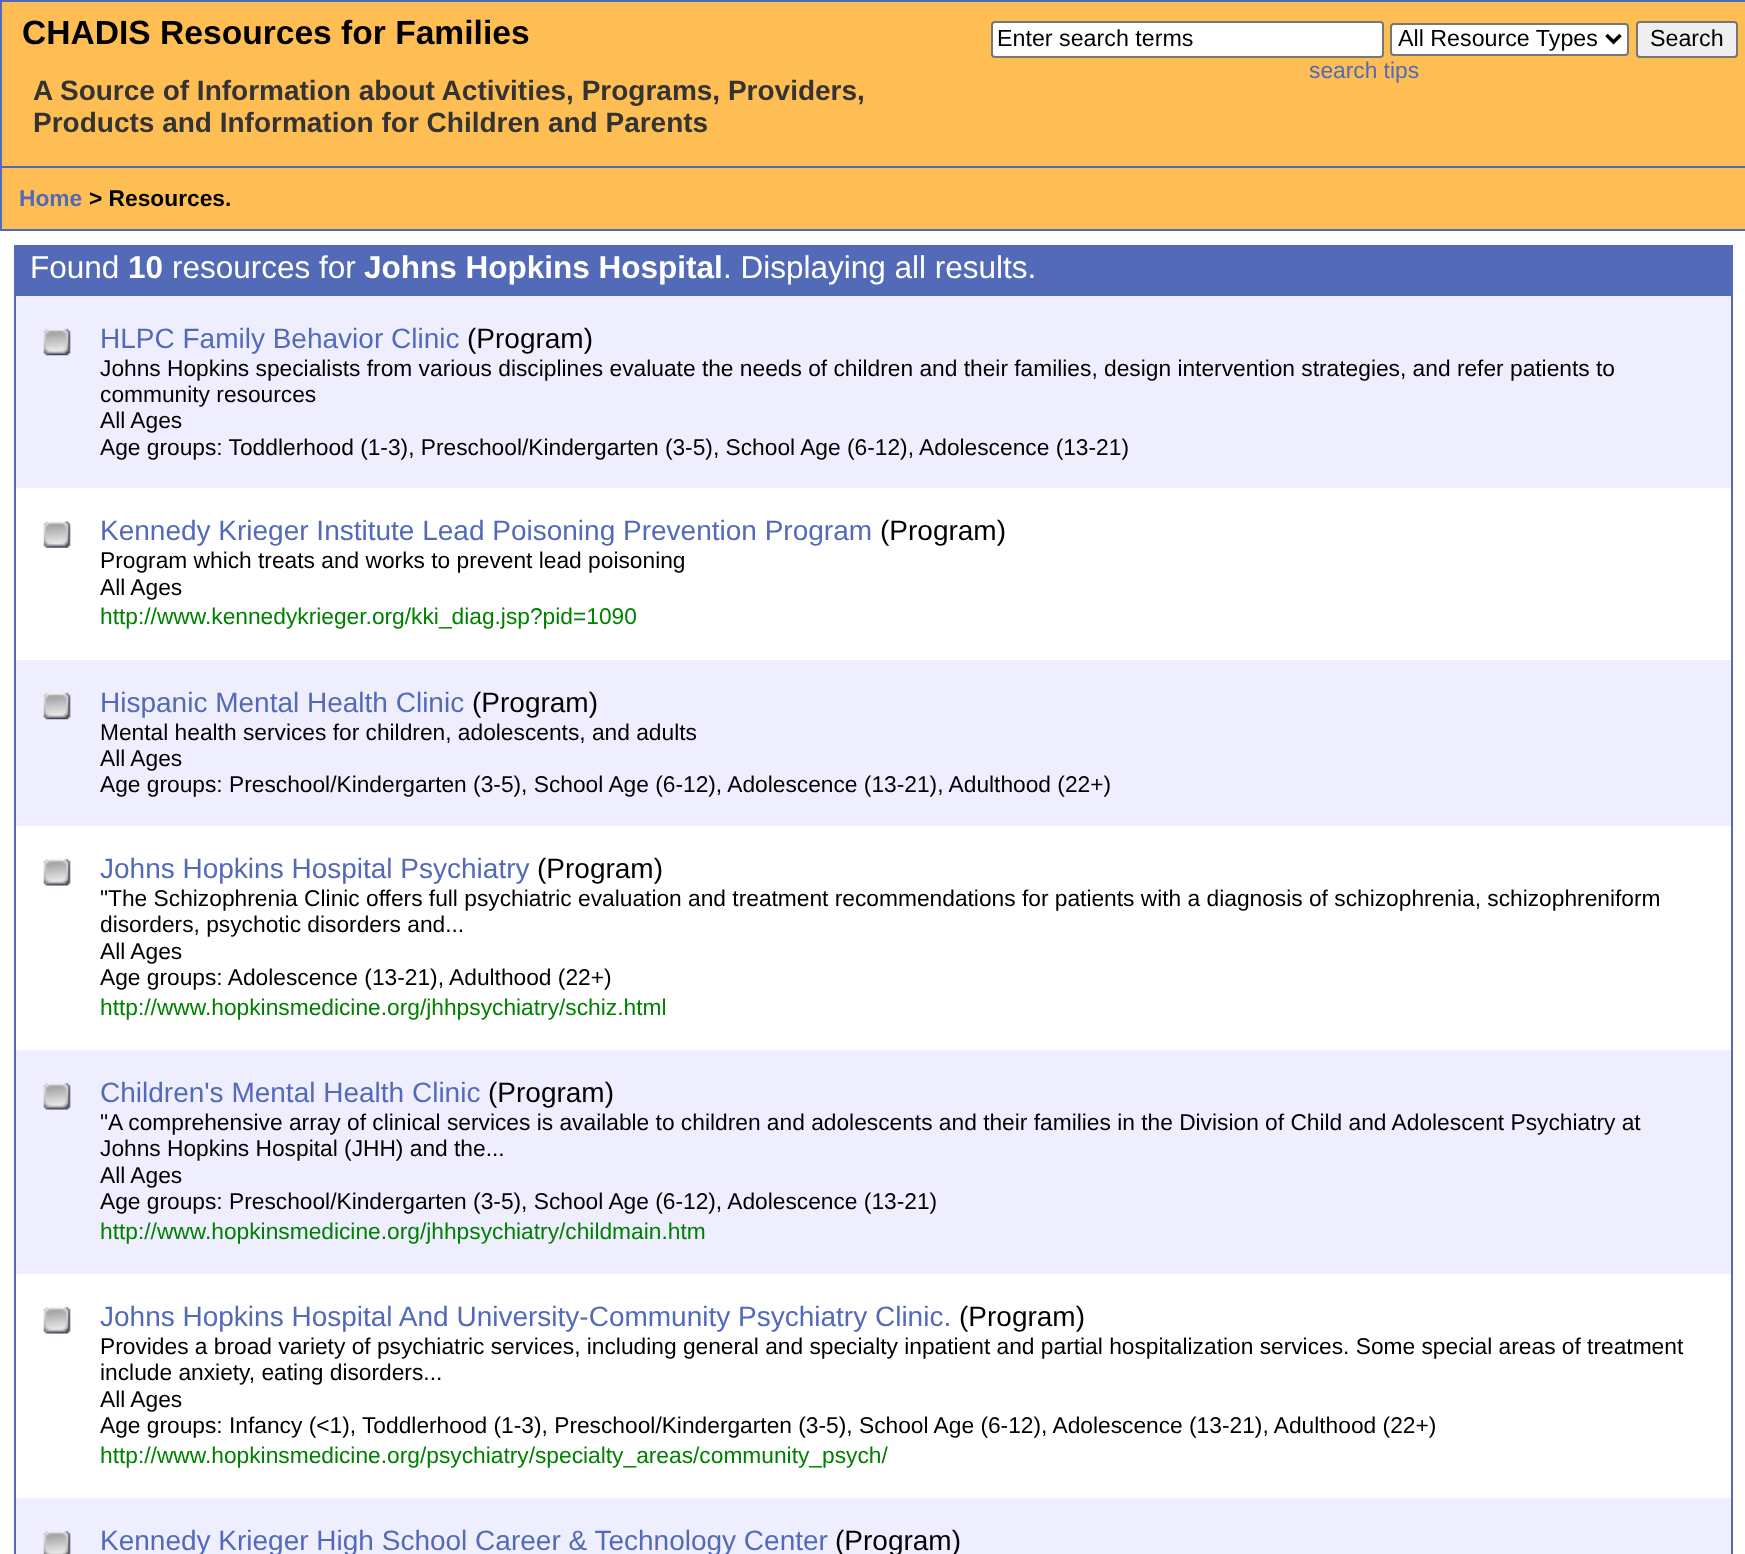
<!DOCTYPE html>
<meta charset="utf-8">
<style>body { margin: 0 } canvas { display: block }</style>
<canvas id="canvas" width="1745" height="1554"></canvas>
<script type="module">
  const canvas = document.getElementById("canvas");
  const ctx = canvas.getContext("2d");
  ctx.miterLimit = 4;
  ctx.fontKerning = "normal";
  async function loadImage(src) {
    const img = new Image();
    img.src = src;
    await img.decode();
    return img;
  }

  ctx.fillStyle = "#ffffff";
  ctx.fillRect(0, 0, 1745, 1554);
  ctx.fillStyle = "#ffbe53";
  ctx.beginPath();
  ctx.rect(1, 1, 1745, 166);
  ctx.fill();
  ctx.strokeStyle = "#526ab7";
  ctx.lineWidth = 2;
  ctx.stroke();
  ctx.font = "bold 33.6px Liberation Sans";
  ctx.fillStyle = "#000000";
  ctx.fillText("CHADIS Resources for Families", 22, 44);
  ctx.font = "bold 28px Liberation Sans";
  ctx.fillStyle = "#333333";
  ctx.fillText("A Source of Information about Activities, Programs, Providers,", 33, 100);
  ctx.fillText("Products and Information for Children and Parents", 33, 132);
  ctx.fillStyle = "#ffffff";
  ctx.beginPath();
  ctx.roundRect(992, 22, 391, 35, 3);
  ctx.fill();
  ctx.strokeStyle = "#767676";
  ctx.stroke();
  ctx.font = "23.25px Liberation Sans";
  ctx.fillStyle = "#000000";
  ctx.fillText("Enter search terms", 997, 46);
  ctx.fillStyle = "#ffffff";
  ctx.beginPath();
  ctx.roundRect(1391, 24, 237, 31, 3);
  ctx.fill();
  ctx.stroke();
  ctx.beginPath();
  ctx.moveTo(1606.5, 35);
  ctx.lineTo(1613.5, 42);
  ctx.lineTo(1620.5, 35);
  ctx.strokeStyle = "#000000";
  ctx.lineWidth = 3.5;
  ctx.stroke();
  ctx.fillStyle = "#000000";
  ctx.fillText("All Resource Types", 1398, 46);
  ctx.fillStyle = "#efefef";
  ctx.beginPath();
  ctx.roundRect(1637, 22, 100, 35, 3);
  ctx.fill();
  ctx.strokeStyle = "#767676";
  ctx.lineWidth = 2;
  ctx.stroke();
  ctx.fillStyle = "#000000";
  ctx.fillText("Search", 1650, 46);
  ctx.font = "22.75px Liberation Sans";
  ctx.fillStyle = "#526ab7";
  ctx.fillText("search tips", 1309, 78);
  ctx.fillStyle = "#ffbe53";
  ctx.fillRect(2, 168, 1743, 61);
  ctx.fillStyle = "#526ab7";
  ctx.fillRect(0, 229, 1745, 2);
  ctx.fillRect(0, 168, 2, 63);
  ctx.font = "bold 22.75px Liberation Sans";
  ctx.fillText("Home", 19, 206);
  ctx.fillStyle = "#000000";
  ctx.fillText("> Resources.", 89, 206);
  ctx.fillStyle = "#526ab7";
  ctx.fillRect(14, 245, 1719, 49);
  ctx.font = "31.5px Liberation Sans";
  ctx.fillStyle = "#ffffff";
  ctx.fillText("Found", 30, 278);
  ctx.font = "bold 31.5px Liberation Sans";
  ctx.fillText("10", 128, 278);
  ctx.font = "31.5px Liberation Sans";
  ctx.fillText("resources for", 172, 278);
  ctx.font = "bold 31.5px Liberation Sans";
  ctx.fillText("Johns Hopkins Hospital", 364, 278);
  ctx.font = "31.5px Liberation Sans";
  ctx.fillText(". Displaying all results.", 723, 278);
  ctx.strokeStyle = "#526ab7";
  ctx.strokeRect(15, 295, 1717, 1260);
  ctx.fillStyle = "#eeeeff";
  ctx.fillRect(16, 296, 1715, 192);
  ctx.drawImage(await loadImage("img1.png"), 43, 328, 28, 28);
  ctx.font = "28px Liberation Sans";
  ctx.fillStyle = "#526ab7";
  ctx.fillText("HLPC Family Behavior Clinic", 100, 348);
  ctx.fillStyle = "#000000";
  ctx.fillText("(Program)", 467, 348);
  ctx.font = "22.75px Liberation Sans";
  ctx.fillText("Johns Hopkins specialists from various disciplines evaluate the needs of children and their families, design intervention strategies, and refer patients to", 100, 376);
  ctx.fillText("community resources", 100, 402);
  ctx.fillText("All Ages", 100, 428);
  ctx.fillText("Age groups: Toddlerhood (1-3), Preschool/Kindergarten (3-5), School Age (6-12), Adolescence (13-21)", 100, 455);
  ctx.drawImage(await loadImage("img2.png"), 43, 521, 28, 27);
  ctx.font = "28px Liberation Sans";
  ctx.fillStyle = "#526ab7";
  ctx.fillText("Kennedy Krieger Institute Lead Poisoning Prevention Program", 100, 540);
  ctx.fillStyle = "#000000";
  ctx.fillText("(Program)", 880, 540);
  ctx.font = "22.75px Liberation Sans";
  ctx.fillText("Program which treats and works to prevent lead poisoning", 100, 568);
  ctx.fillText("All Ages", 100, 595);
  ctx.fillStyle = "#008000";
  ctx.fillText("http://www.kennedykrieger.org/kki_diag.jsp?pid=1090", 100, 624);
  ctx.fillStyle = "#eeeeff";
  ctx.fillRect(16, 660, 1715, 166);
  ctx.drawImage(await loadImage("img1.png"), 43, 692, 28, 28);
  ctx.font = "28px Liberation Sans";
  ctx.fillStyle = "#526ab7";
  ctx.fillText("Hispanic Mental Health Clinic", 100, 712);
  ctx.fillStyle = "#000000";
  ctx.fillText("(Program)", 472, 712);
  ctx.font = "22.75px Liberation Sans";
  ctx.fillText("Mental health services for children, adolescents, and adults", 100, 740);
  ctx.fillText("All Ages", 100, 766);
  ctx.fillText("Age groups: Preschool/Kindergarten (3-5), School Age (6-12), Adolescence (13-21), Adulthood (22+)", 100, 792);
  ctx.drawImage(await loadImage("img3.png"), 43, 858, 28, 28);
  ctx.font = "28px Liberation Sans";
  ctx.fillStyle = "#526ab7";
  ctx.fillText("Johns Hopkins Hospital Psychiatry", 100, 878);
  ctx.fillStyle = "#000000";
  ctx.fillText("(Program)", 537, 878);
  ctx.font = "22.75px Liberation Sans";
  ctx.fillText("\"The Schizophrenia Clinic offers full psychiatric evaluation and treatment recommendations for patients with a diagnosis of schizophrenia, schizophreniform", 100, 906);
  ctx.fillText("disorders, psychotic disorders and...", 100, 932);
  ctx.fillText("All Ages", 100, 959);
  ctx.fillText("Age groups: Adolescence (13-21), Adulthood (22+)", 100, 985);
  ctx.fillStyle = "#008000";
  ctx.fillText("http://www.hopkinsmedicine.org/jhhpsychiatry/schiz.html", 100, 1015);
  ctx.fillStyle = "#eeeeff";
  ctx.fillRect(16, 1050, 1715, 224);
  ctx.drawImage(await loadImage("img4.png"), 43, 1082, 28, 28);
  ctx.font = "28px Liberation Sans";
  ctx.fillStyle = "#526ab7";
  ctx.fillText("Children's Mental Health Clinic", 100, 1102);
  ctx.fillStyle = "#000000";
  ctx.fillText("(Program)", 488, 1102);
  ctx.font = "22.75px Liberation Sans";
  ctx.fillText("\"A comprehensive array of clinical services is available to children and adolescents and their families in the Division of Child and Adolescent Psychiatry at", 100, 1130);
  ctx.fillText("Johns Hopkins Hospital (JHH) and the...", 100, 1156);
  ctx.fillText("All Ages", 100, 1183);
  ctx.fillText("Age groups: Preschool/Kindergarten (3-5), School Age (6-12), Adolescence (13-21)", 100, 1209);
  ctx.fillStyle = "#008000";
  ctx.fillText("http://www.hopkinsmedicine.org/jhhpsychiatry/childmain.htm", 100, 1239);
  ctx.drawImage(await loadImage("img3.png"), 43, 1306, 28, 28);
  ctx.font = "28px Liberation Sans";
  ctx.fillStyle = "#526ab7";
  ctx.fillText("Johns Hopkins Hospital And University-Community Psychiatry Clinic.", 100, 1326);
  ctx.fillStyle = "#000000";
  ctx.fillText("(Program)", 959, 1326);
  ctx.font = "22.75px Liberation Sans";
  ctx.fillText("Provides a broad variety of psychiatric services, including general and specialty inpatient and partial hospitalization services. Some special areas of treatment", 100, 1354);
  ctx.fillText("include anxiety, eating disorders...", 100, 1380);
  ctx.fillText("All Ages", 100, 1407);
  ctx.fillText("Age groups: Infancy (<1), Toddlerhood (1-3), Preschool/Kindergarten (3-5), School Age (6-12), Adolescence (13-21), Adulthood (22+)", 100, 1433);
  ctx.fillStyle = "#008000";
  ctx.fillText("http://www.hopkinsmedicine.org/psychiatry/specialty_areas/community_psych/", 100, 1463);
  ctx.fillStyle = "#eeeeff";
  ctx.fillRect(16, 1498, 1715, 56);
  ctx.drawImage(await loadImage("img5.png"), 43, 1530, 28, 24);
  ctx.font = "28px Liberation Sans";
  ctx.fillStyle = "#526ab7";
  ctx.fillText("Kennedy Krieger High School Career & Technology Center", 100, 1550);
  ctx.fillStyle = "#000000";
  ctx.fillText("(Program)", 835, 1550);
</script>
